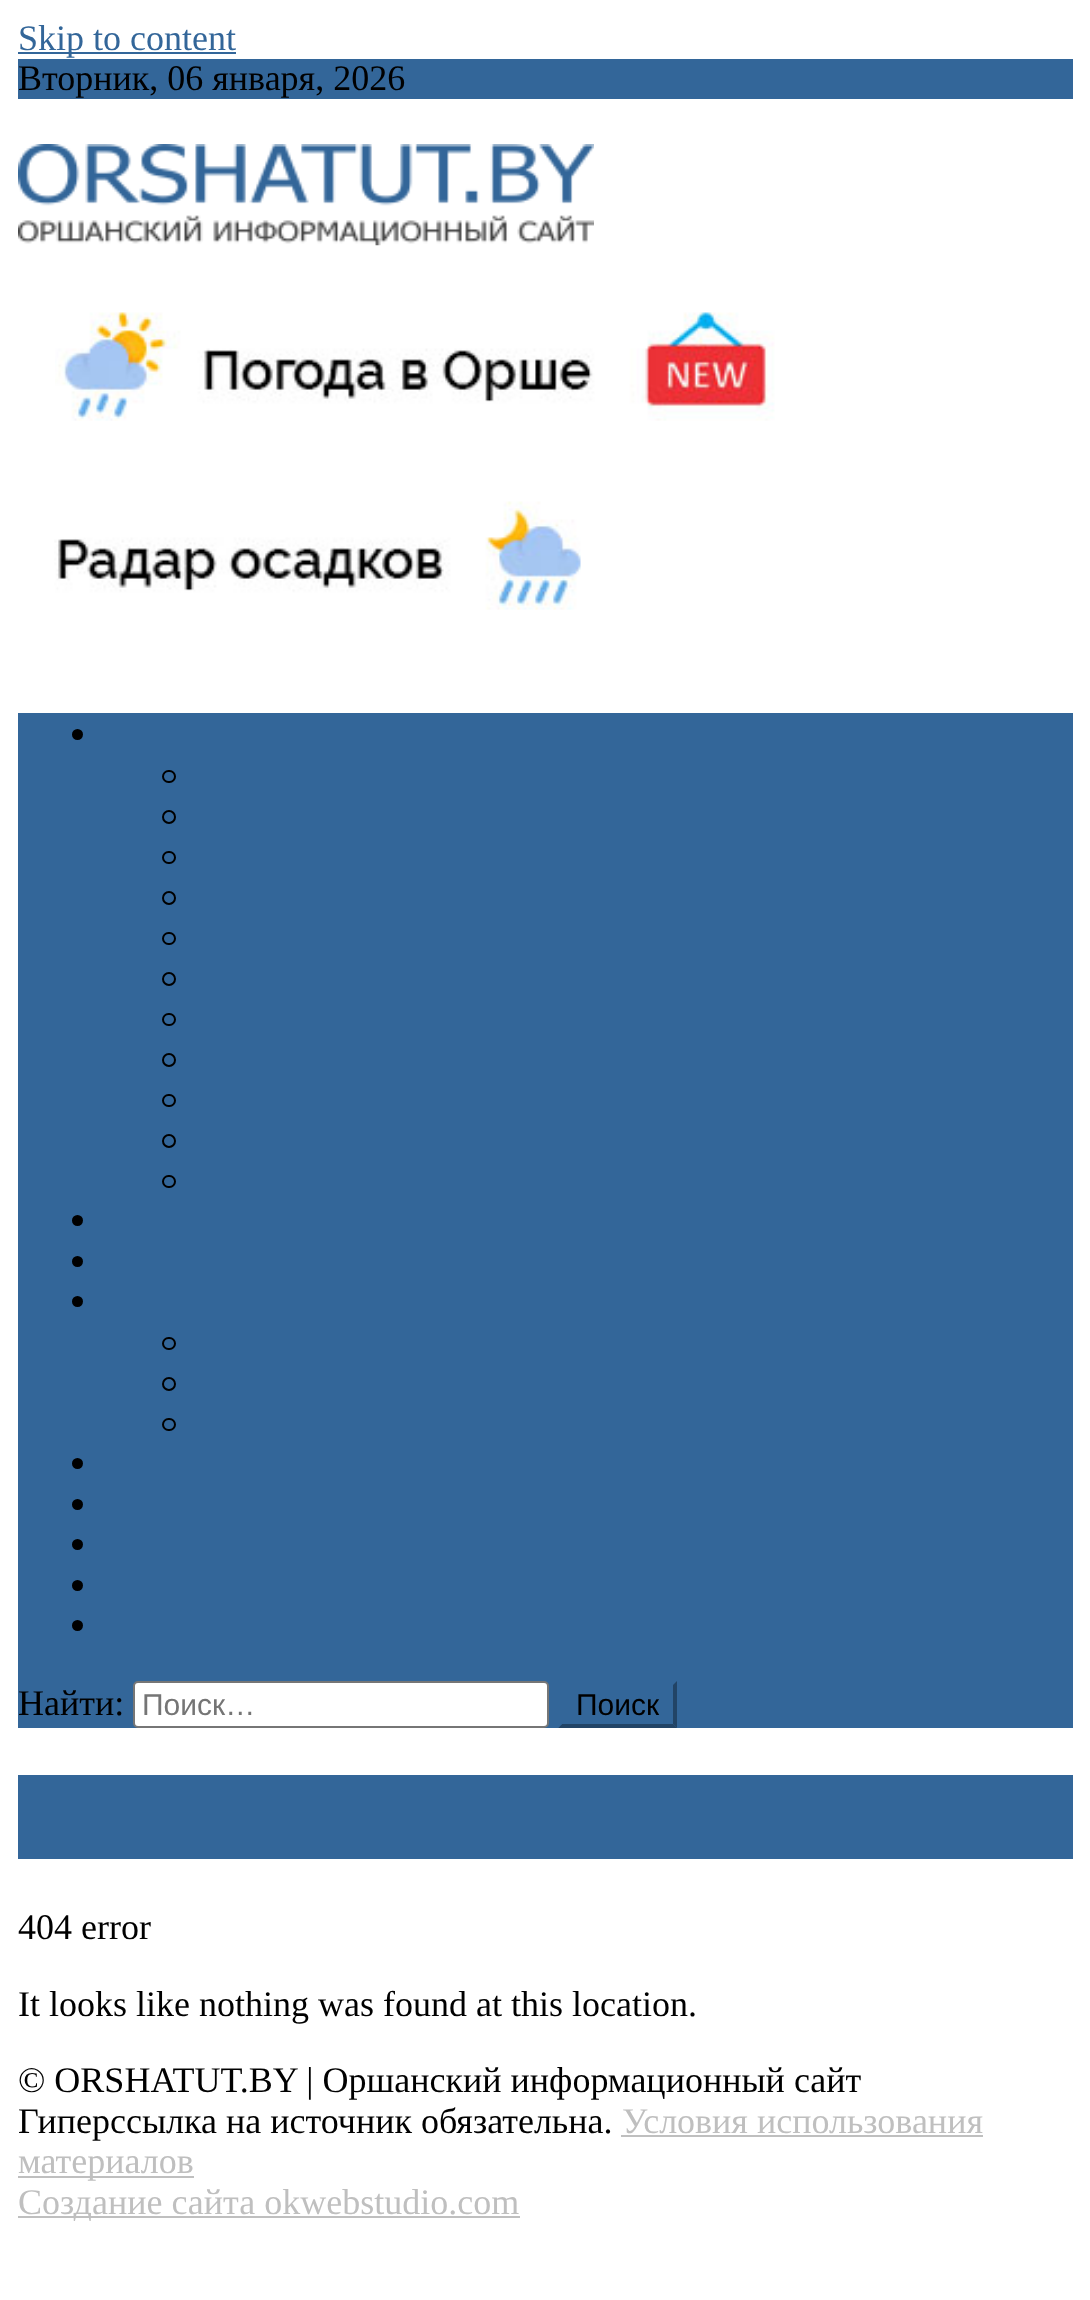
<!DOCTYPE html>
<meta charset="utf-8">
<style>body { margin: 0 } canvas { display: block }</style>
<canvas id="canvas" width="1090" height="2300"></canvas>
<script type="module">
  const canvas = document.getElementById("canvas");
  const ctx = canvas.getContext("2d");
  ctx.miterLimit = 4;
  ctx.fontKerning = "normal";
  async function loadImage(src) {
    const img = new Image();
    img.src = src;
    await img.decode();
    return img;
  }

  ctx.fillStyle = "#ffffff";
  ctx.fillRect(0, 0, 1090, 2300);
  ctx.fillStyle = "#336699";
  ctx.fillRect(18, 52, 218, 2);
  ctx.font = "36px Liberation Serif";
  ctx.fillText("Skip to content", 18, 50);
  ctx.fillRect(18, 59, 1055, 40);
  ctx.fillStyle = "#000000";
  ctx.fillText("Вторник, 06 января, 2026", 18, 90);
  ctx.drawImage(await loadImage("img1.png"), 18, 144, 576, 102);
  ctx.drawImage(await loadImage("img2.png"), 55, 312, 720, 109);
  ctx.drawImage(await loadImage("img3.png"), 54, 501, 527, 109);
  ctx.fillStyle = "#336699";
  ctx.fillRect(18, 713, 1055, 1015);
  ctx.fillStyle = "#000000";
  ctx.beginPath();
  ctx.arc(77.5, 734.5, 5.5, 0, Math.PI * 2);
  ctx.fill();
  ctx.beginPath();
  ctx.roundRect(163, 771, 12, 11, 5.5);
  ctx.strokeStyle = "#000000";
  ctx.lineWidth = 2;
  ctx.stroke();
  ctx.beginPath();
  ctx.arc(169, 817, 6, 0, Math.PI * 2);
  ctx.stroke();
  ctx.beginPath();
  ctx.roundRect(163, 852, 12, 11, 5.5);
  ctx.stroke();
  ctx.beginPath();
  ctx.arc(169, 898, 6, 0, Math.PI * 2);
  ctx.stroke();
  ctx.beginPath();
  ctx.roundRect(163, 933, 12, 11, 5.5);
  ctx.stroke();
  ctx.beginPath();
  ctx.arc(169, 979, 6, 0, Math.PI * 2);
  ctx.stroke();
  ctx.beginPath();
  ctx.roundRect(163, 1014, 12, 11, 5.5);
  ctx.stroke();
  ctx.beginPath();
  ctx.arc(169, 1060, 6, 0, Math.PI * 2);
  ctx.stroke();
  ctx.beginPath();
  ctx.roundRect(163, 1095, 12, 11, 5.5);
  ctx.stroke();
  ctx.beginPath();
  ctx.arc(169, 1141, 6, 0, Math.PI * 2);
  ctx.stroke();
  ctx.beginPath();
  ctx.roundRect(163, 1176, 12, 11, 5.5);
  ctx.stroke();
  ctx.beginPath();
  ctx.arc(77.5, 1220.5, 5.5, 0, Math.PI * 2);
  ctx.fill();
  ctx.beginPath();
  ctx.arc(77.5, 1261.5, 5.5, 0, Math.PI * 2);
  ctx.fill();
  ctx.beginPath();
  ctx.arc(77.5, 1301.5, 5.5, 0, Math.PI * 2);
  ctx.fill();
  ctx.beginPath();
  ctx.roundRect(163, 1338, 12, 11, 5.5);
  ctx.stroke();
  ctx.beginPath();
  ctx.arc(169, 1384, 6, 0, Math.PI * 2);
  ctx.stroke();
  ctx.beginPath();
  ctx.roundRect(163, 1419, 12, 11, 5.5);
  ctx.stroke();
  ctx.beginPath();
  ctx.arc(77.5, 1463.5, 5.5, 0, Math.PI * 2);
  ctx.fill();
  ctx.beginPath();
  ctx.arc(77.5, 1504.5, 5.5, 0, Math.PI * 2);
  ctx.fill();
  ctx.beginPath();
  ctx.arc(77.5, 1544.5, 5.5, 0, Math.PI * 2);
  ctx.fill();
  ctx.beginPath();
  ctx.arc(77.5, 1585.5, 5.5, 0, Math.PI * 2);
  ctx.fill();
  ctx.beginPath();
  ctx.arc(77.5, 1625.5, 5.5, 0, Math.PI * 2);
  ctx.fill();
  ctx.fillText("Найти:", 18, 1715);
  ctx.fillStyle = "#ffffff";
  ctx.beginPath();
  ctx.roundRect(134, 1682, 414, 45, 4);
  ctx.fill();
  ctx.strokeStyle = "#767676";
  ctx.stroke();
  ctx.font = "30px Liberation Sans";
  ctx.fillStyle = "#757575";
  ctx.fillText("Поиск…", 142, 1715);
  ctx.fillStyle = "#224466";
  ctx.beginPath();
  ctx.moveTo(677, 1681);
  ctx.lineTo(677, 1728);
  ctx.lineTo(673, 1724);
  ctx.lineTo(673, 1685);
  ctx.closePath();
  ctx.fill();
  ctx.beginPath();
  ctx.moveTo(677, 1728);
  ctx.lineTo(558, 1728);
  ctx.lineTo(562, 1724);
  ctx.lineTo(673, 1724);
  ctx.closePath();
  ctx.fill();
  ctx.fillStyle = "#336699";
  ctx.beginPath();
  ctx.moveTo(558, 1728);
  ctx.lineTo(558, 1681);
  ctx.lineTo(562, 1685);
  ctx.lineTo(562, 1724);
  ctx.closePath();
  ctx.fill();
  ctx.fillStyle = "#000000";
  ctx.fillText("Поиск", 576, 1715);
  ctx.fillStyle = "#336699";
  ctx.fillRect(18, 1775, 1055, 84);
  ctx.font = "36px Liberation Serif";
  ctx.fillStyle = "#000000";
  ctx.fillText("404 error", 18, 1939);
  ctx.fillText("It looks like nothing was found at this location.", 18, 2016);
  ctx.fillText("© ORSHATUT.BY | Оршанский информационный сайт", 18, 2092);
  ctx.fillText("Гиперссылка на источник обязательна.", 18, 2133);
  ctx.fillStyle = "#bfbfbf";
  ctx.fillText("Условия использования", 622, 2133);
  ctx.fillRect(621, 2135, 362, 2);
  ctx.fillRect(18, 2176, 176, 2);
  ctx.fillText("материалов", 18, 2173);
  ctx.fillRect(18, 2216, 502, 2);
  ctx.fillText("Создание сайта okwebstudio.com", 18, 2214);
</script>
